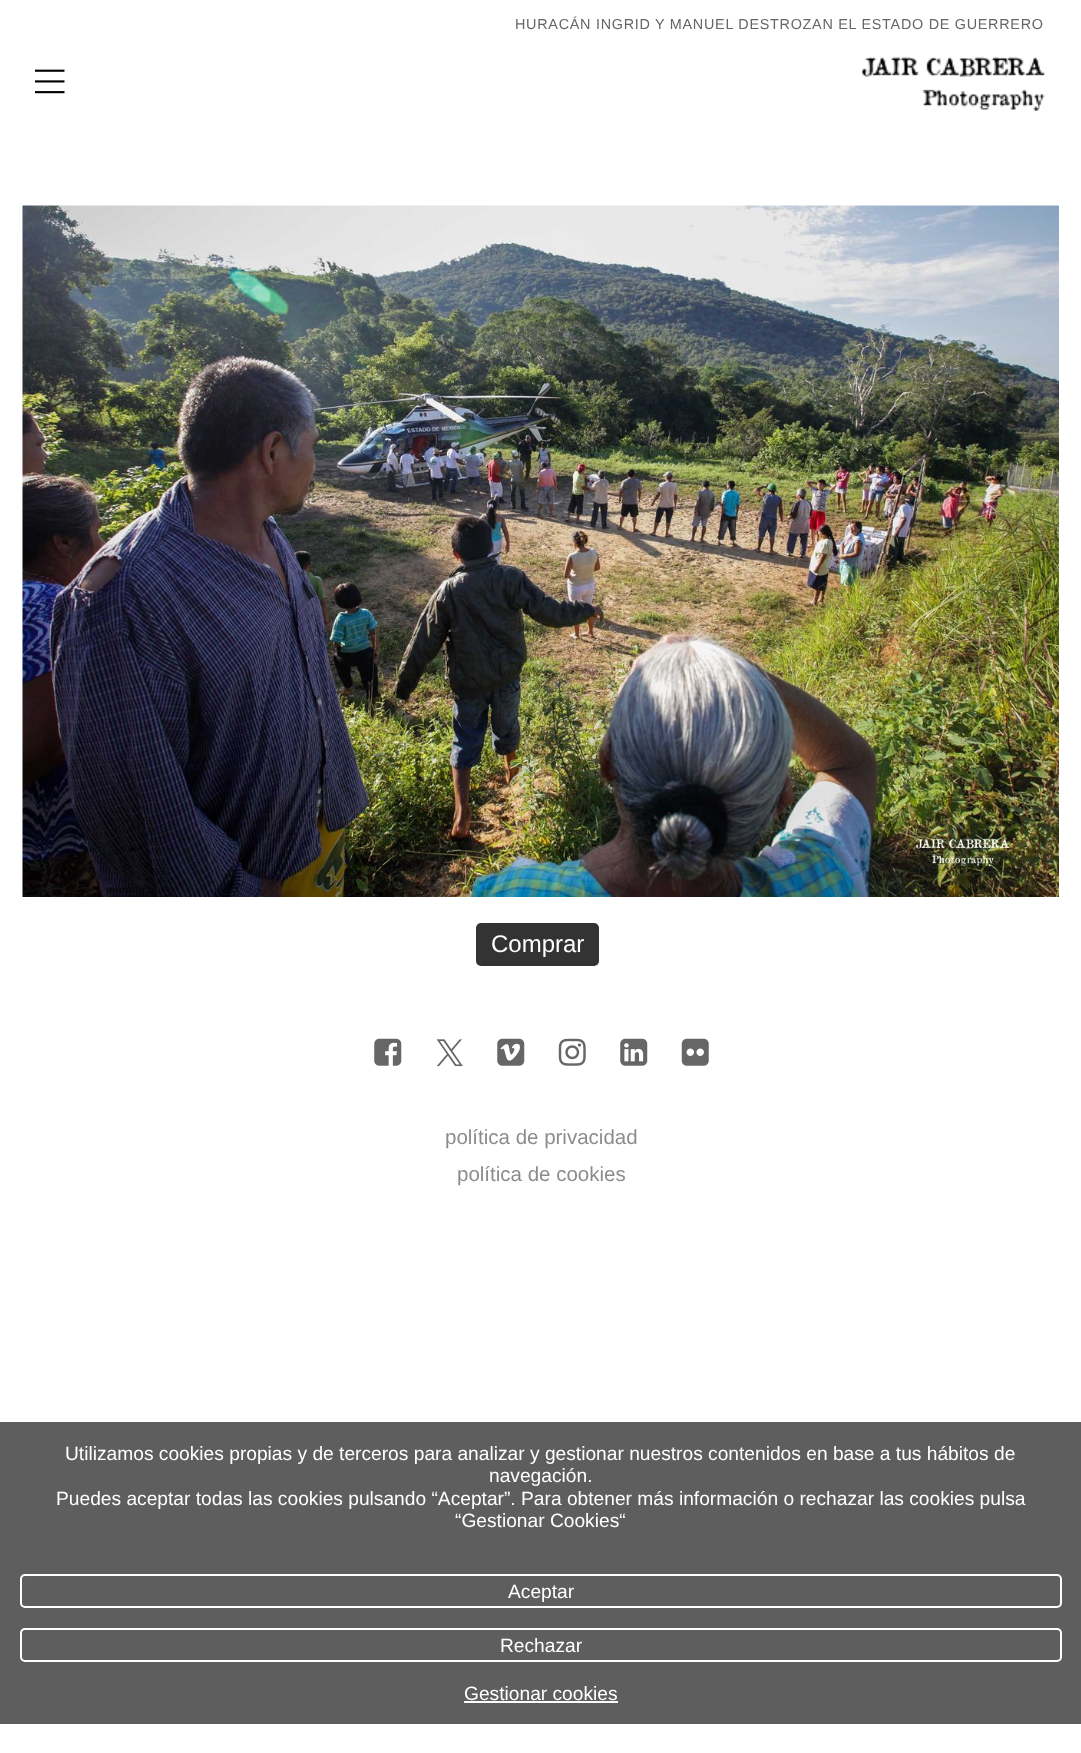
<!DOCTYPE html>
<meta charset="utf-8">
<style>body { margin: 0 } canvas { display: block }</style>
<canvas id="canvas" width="1081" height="1753"></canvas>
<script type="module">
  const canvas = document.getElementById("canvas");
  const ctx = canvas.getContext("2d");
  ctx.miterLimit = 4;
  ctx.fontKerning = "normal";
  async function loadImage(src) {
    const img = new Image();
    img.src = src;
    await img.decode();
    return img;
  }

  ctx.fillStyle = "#ffffff";
  ctx.fillRect(0, 0, 1081, 1753);
  ctx.letterSpacing = "0.72px";
  ctx.font = "14.4px Liberation Sans";
  ctx.fillStyle = "#666666";
  ctx.fillText("HURACÁN INGRID Y MANUEL DESTROZAN EL ESTADO DE GUERRERO", 515, 29);
  ctx.drawImage(await loadImage("img1.png"), 35, 69, 30, 25);
  ctx.drawImage(await loadImage("img2.png"), 861, 56, 185, 55);
  ctx.drawImage(await loadImage("img3.png"), 22, 205, 1037, 692);
  ctx.fillStyle = "#333333";
  ctx.beginPath();
  ctx.roundRect(476, 923, 123, 43, 5);
  ctx.fill();
  ctx.letterSpacing = "0px";
  ctx.font = "24px Liberation Sans";
  ctx.fillStyle = "#ffffff";
  ctx.fillText("Comprar", 491, 952);
  ctx.drawImage(await loadImage("img4.png"), 374, 1038, 28, 28);
  ctx.drawImage(await loadImage("img5.png"), 436, 1039, 27, 28);
  ctx.drawImage(await loadImage("img6.png"), 497, 1038, 28, 28);
  ctx.drawImage(await loadImage("img7.png"), 558, 1038, 28, 28);
  ctx.drawImage(await loadImage("img8.png"), 620, 1038, 28, 28);
  ctx.drawImage(await loadImage("img9.png"), 681, 1038, 28, 28);
  ctx.font = "20.5px Liberation Sans";
  ctx.fillStyle = "#8c8c8c";
  ctx.fillText("política de privacidad", 445, 1144);
  ctx.fillText("política de cookies", 457, 1181);
  ctx.fillStyle = "#5e5e5e";
  ctx.fillRect(0, 1422, 1081, 302);
  ctx.font = "19.2px Liberation Sans";
  ctx.fillStyle = "#ffffff";
  ctx.fillText("Utilizamos cookies propias y de terceros para analizar y gestionar nuestros contenidos en base a tus hábitos de", 65, 1460);
  ctx.fillText("navegación.", 489, 1482);
  ctx.fillText("Puedes aceptar todas las cookies pulsando “Aceptar”. Para obtener más información o rechazar las cookies pulsa", 56, 1505);
  ctx.fillText("“Gestionar Cookies“", 455, 1527);
  ctx.beginPath();
  ctx.roundRect(21, 1575, 1040, 32, 4);
  ctx.strokeStyle = "#ffffff";
  ctx.lineWidth = 2;
  ctx.stroke();
  ctx.fillText("Aceptar", 508, 1598);
  ctx.beginPath();
  ctx.roundRect(21, 1629, 1040, 32, 4);
  ctx.stroke();
  ctx.fillText("Rechazar", 500, 1652);
  ctx.fillText("Gestionar cookies", 464, 1700);
  ctx.fillRect(464, 1701, 154, 2);
</script>
